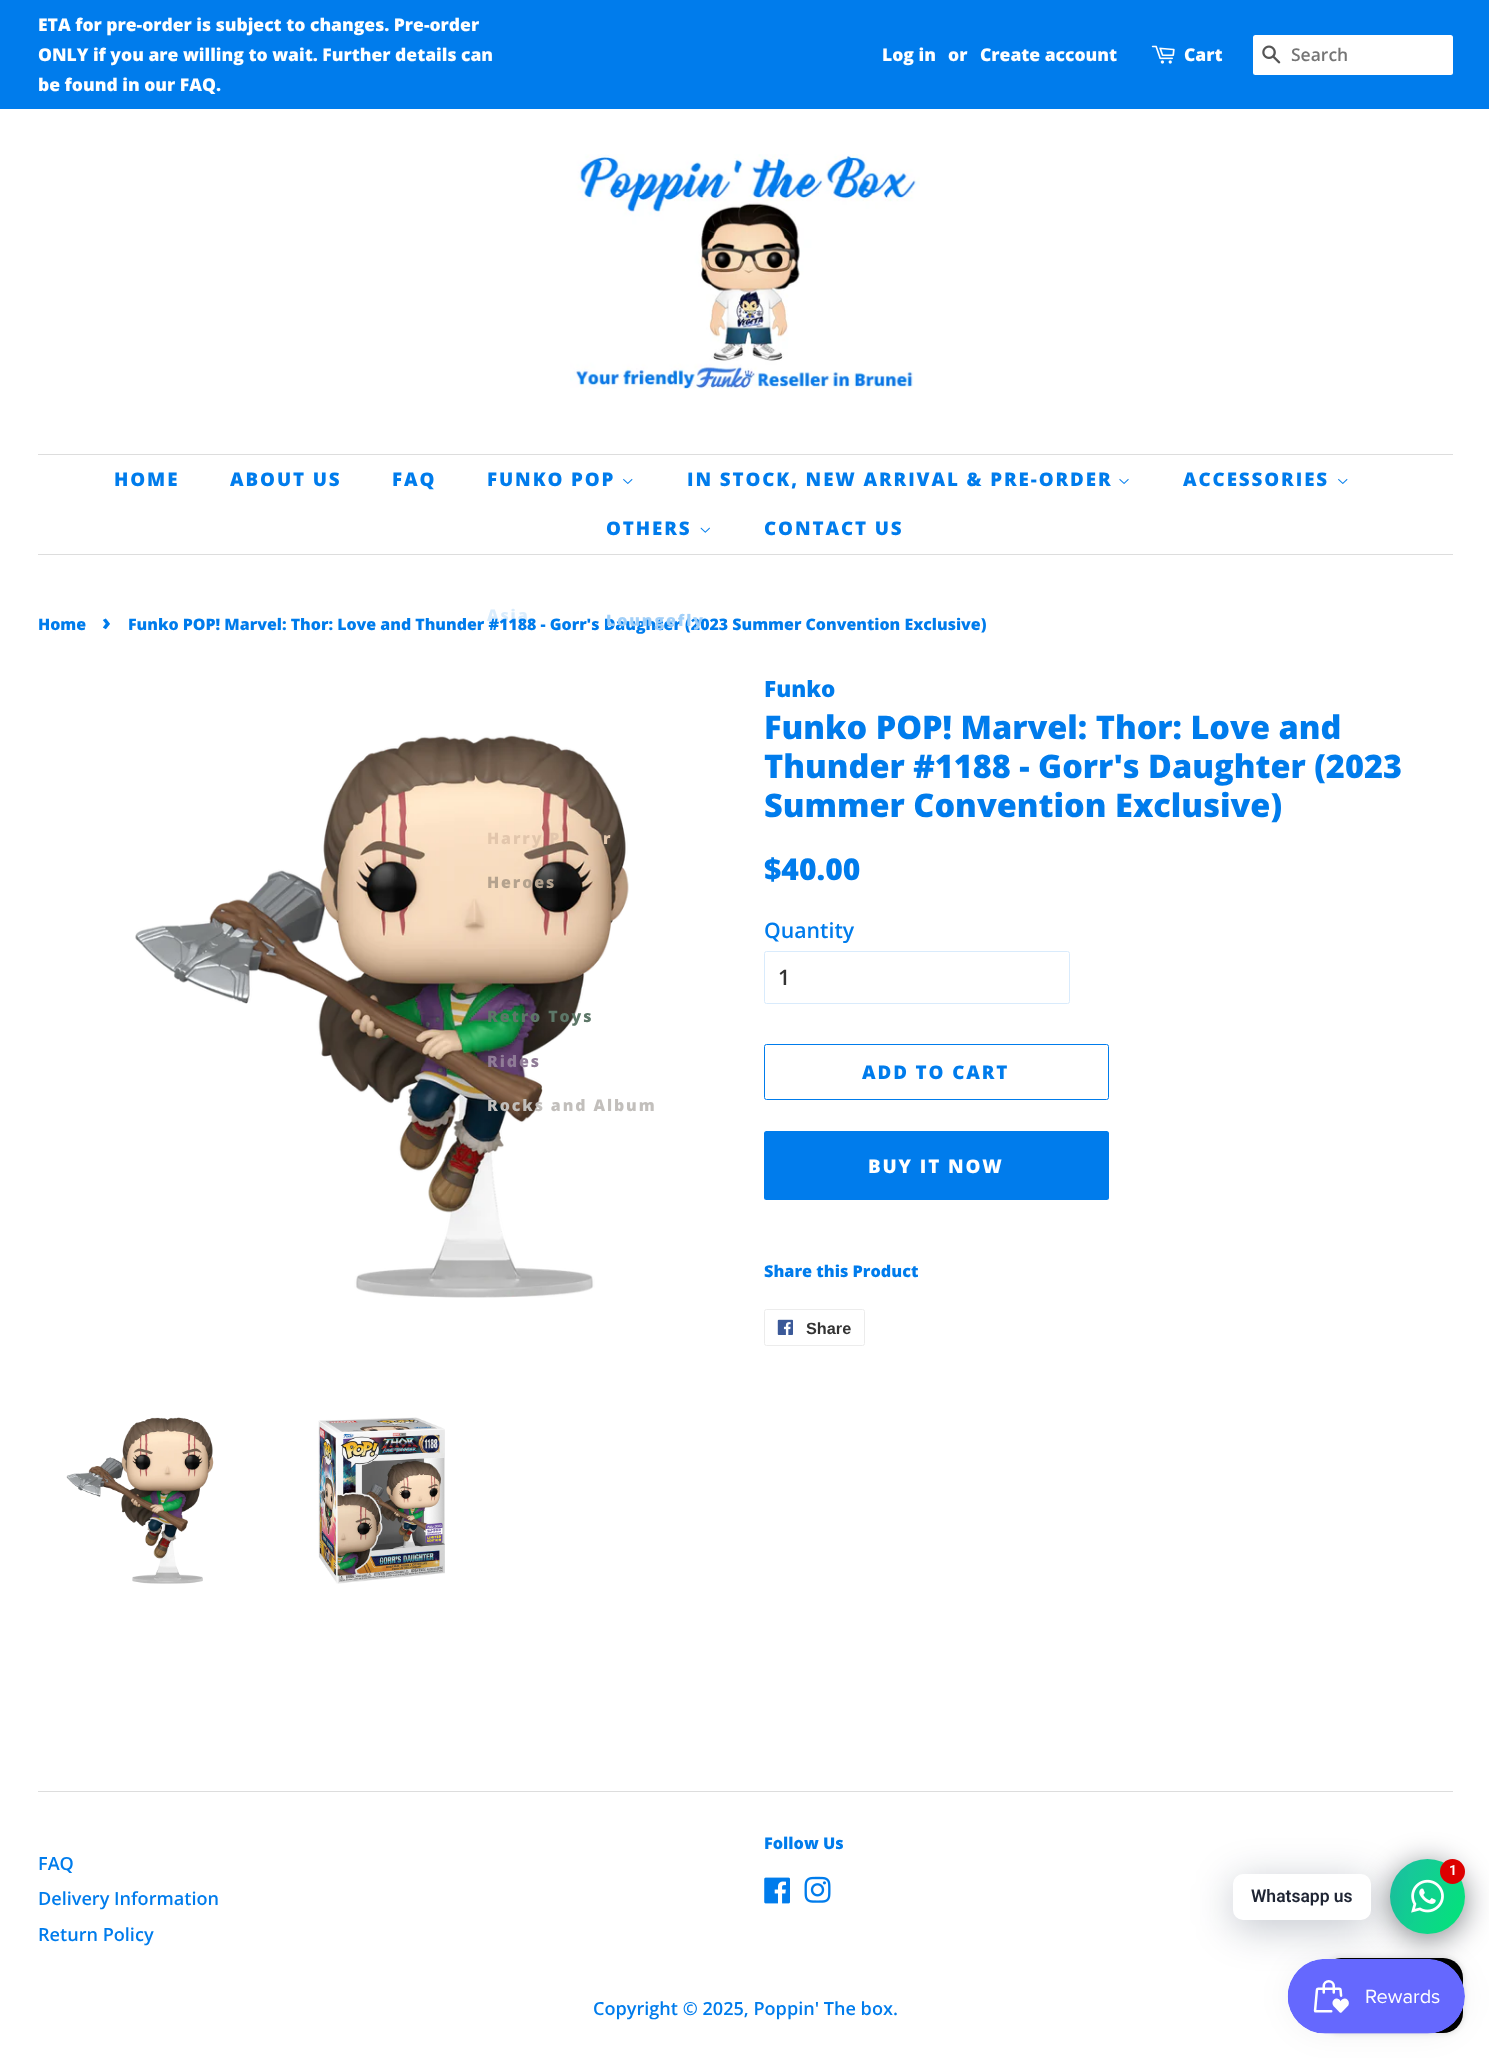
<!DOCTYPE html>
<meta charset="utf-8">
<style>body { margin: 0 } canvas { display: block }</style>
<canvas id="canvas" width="1489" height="2058"></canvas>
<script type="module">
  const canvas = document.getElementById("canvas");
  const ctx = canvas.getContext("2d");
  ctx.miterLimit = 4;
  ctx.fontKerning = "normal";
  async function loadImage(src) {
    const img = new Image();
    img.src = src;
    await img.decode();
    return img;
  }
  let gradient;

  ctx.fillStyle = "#ffffff";
  ctx.fillRect(0, 0, 1489, 2058);
  ctx.fillStyle = "#007cec";
  ctx.fillRect(0, 0, 1489, 109);
  ctx.font = "800 17.5px Open Sans";
  ctx.fillStyle = "#ffffff";
  ctx.fillText("ETA for pre-order is subject to changes. Pre-order", 38, 31);
  ctx.fillText("ONLY if you are willing to wait. Further details can", 38, 61);
  ctx.fillText("be found in our FAQ.", 38, 91);
  ctx.fillText("Log in", 882, 61);
  ctx.fillText("or", 948, 61);
  ctx.fillText("Create account", 980, 61);
  ctx.drawImage(await loadImage("img1.png"), 1151, 45, 24, 19);
  ctx.fillText("Cart", 1184, 61);
  ctx.beginPath();
  ctx.roundRect(1253, 35, 200, 40, 2.5);
  ctx.fill();
  ctx.drawImage(await loadImage("img2.png"), 1262, 45, 19, 19);
  ctx.font = "600 17.5px Open Sans";
  ctx.fillStyle = "#757575";
  ctx.fillText("Search", 1291, 61);
  ctx.drawImage(await loadImage("img3.png"), 570, 154, 350, 235);
  ctx.fillStyle = "#dddddd";
  ctx.fillRect(38, 454, 1415, 1);
  ctx.fillRect(38, 554, 1415, 1);
  ctx.letterSpacing = "1.9px";
  ctx.font = "800 18.75px Open Sans";
  ctx.fillStyle = "#007cec";
  ctx.fillText("HOME", 114, 486);
  ctx.fillText("ABOUT US", 230, 486);
  ctx.fillText("FAQ", 392, 486);
  ctx.fillText("FUNKO POP", 487, 486);
  ctx.drawImage(await loadImage("img4.png"), 623, 478, 10, 6);
  ctx.font = "800 15.95px Open Sans";
  ctx.fillStyle = "#d9ecfc";
  ctx.fillText("Asia", 487, 621);
  ctx.drawImage(await loadImage("img7.png"), 135, 735, 494, 563);
  ctx.fillStyle = "#e2c6ac";
  ctx.fillText("Harry P", 487, 844);
  ctx.fillText("r", 603, 844);
  ctx.fillStyle = "#b4a28e";
  ctx.fillText("Heroes", 487, 888);
  ctx.fillStyle = "#5d7768";
  ctx.fillText("Retro Toys", 487, 1022);
  ctx.fillStyle = "#907c97";
  ctx.fillText("Rides", 487, 1067);
  ctx.fillStyle = "#c2bfbc";
  ctx.fillText("Rocks and Album", 487, 1111);
  ctx.font = "800 18.75px Open Sans";
  ctx.fillStyle = "#007cec";
  ctx.fillText("IN STOCK, NEW ARRIVAL & PRE-ORDER", 687, 486);
  ctx.drawImage(await loadImage("img5.png"), 1119, 478, 10, 6);
  ctx.fillText("ACCESSORIES", 1183, 486);
  ctx.drawImage(await loadImage("img4.png"), 1338, 478, 10, 6);
  ctx.fillText("OTHERS", 606, 535);
  ctx.drawImage(await loadImage("img6.png"), 700, 527, 10, 6);
  ctx.letterSpacing = "0px";
  ctx.font = "800 15.95px Open Sans";
  ctx.fillText("Funko POP! Marvel: Thor: Love and Thunder #1188 - Gorr's Daughter (2023 Summer Convention Exclusive)", 128, 630);
  ctx.letterSpacing = "1.9px";
  ctx.fillStyle = "#a1cff8";
  ctx.fillText("Loungefly", 606, 626);
  ctx.font = "800 18.75px Open Sans";
  ctx.fillStyle = "#007cec";
  ctx.fillText("CONTACT US", 764, 535);
  ctx.letterSpacing = "0px";
  ctx.font = "800 15.95px Open Sans";
  ctx.fillText("Home", 38, 630);
  ctx.font = "800 22px Open Sans";
  ctx.fillText("›", 102, 630);
  ctx.drawImage(await loadImage("img8.png"), 66, 1417, 148, 167);
  ctx.drawImage(await loadImage("img9.png"), 318, 1417, 127, 167);
  ctx.font = "800 22.5px Open Sans";
  ctx.fillText("Funko", 764, 697);
  ctx.font = "800 32.5px Open Sans";
  ctx.fillText("Funko POP! Marvel: Thor: Love and", 764, 739);
  ctx.fillText("Thunder #1188 - Gorr's Daughter (2023", 764, 778);
  ctx.fillText("Summer Convention Exclusive)", 764, 817);
  ctx.font = "800 30px Open Sans";
  ctx.fillText("$40.00", 764, 880);
  ctx.font = "600 21.25px Open Sans";
  ctx.fillText("Quantity", 764, 938);
  ctx.beginPath();
  ctx.roundRect(764.5, 951.5, 305, 52, 2);
  ctx.strokeStyle = "#d9ebfc";
  ctx.stroke();
  ctx.fillStyle = "#333333";
  ctx.fillText("1", 778, 985);
  ctx.beginPath();
  ctx.roundRect(764.5, 1044.5, 344, 55, 2);
  ctx.strokeStyle = "#007cec";
  ctx.stroke();
  ctx.letterSpacing = "1.9px";
  ctx.font = "800 18.75px Open Sans";
  ctx.fillStyle = "#007cec";
  ctx.fillText("ADD TO CART", 862, 1079);
  ctx.beginPath();
  ctx.roundRect(764, 1131, 345, 69, 2.5);
  ctx.fill();
  ctx.fillStyle = "#ffffff";
  ctx.fillText("BUY IT NOW", 868, 1173);
  ctx.letterSpacing = "0px";
  ctx.font = "800 16.25px Open Sans";
  ctx.fillStyle = "#007cec";
  ctx.fillText("Share this Product", 764, 1277);
  ctx.beginPath();
  ctx.roundRect(764.5, 1309.5, 100, 36, 2);
  ctx.strokeStyle = "#ececec";
  ctx.stroke();
  ctx.drawImage(await loadImage("img10.png"), 777, 1319, 16, 16);
  ctx.font = "bold 16.25px Liberation Sans";
  ctx.fillStyle = "#333333";
  ctx.fillText("Share", 806, 1334);
  ctx.fillStyle = "#dddddd";
  ctx.fillRect(38, 1791, 1415, 1);
  ctx.font = "800 16.25px Open Sans";
  ctx.fillStyle = "#007cec";
  ctx.fillText("Follow Us", 764, 1849);
  ctx.drawImage(await loadImage("img11.png"), 764, 1877, 26, 27);
  ctx.drawImage(await loadImage("img12.png"), 804, 1876, 27, 27);
  ctx.font = "600 18.1px Open Sans";
  ctx.fillText("FAQ", 38, 1870);
  ctx.fillText("Delivery Information", 38, 1905);
  ctx.fillText("Return Policy", 38, 1941);
  ctx.fillText("Copyright © 2025, Poppin' The box.", 593, 2015);
  ctx.fillStyle = "rgba(2, 6, 16, 0.5)";
  ctx.filter = "blur(15px)";
  ctx.beginPath();
  ctx.roundRect(1390, 1864, 75, 75, 37.5);
  ctx.fill();
  ctx.filter = "none";
  gradient = ctx.createLinearGradient(1382, 1875, 1473, 1917);
  gradient.addColorStop(0, "#1ebea5");
  gradient.addColorStop(1, "#01e677");
  ctx.fillStyle = gradient;
  ctx.beginPath();
  ctx.arc(1427.5, 1896.5, 37.5, 0, Math.PI * 2);
  ctx.fill();
  ctx.fillStyle = "rgba(0, 18, 46, 0.24)";
  ctx.filter = "blur(20px)";
  ctx.beginPath();
  ctx.roundRect(1233, 1881, 138, 47, 10);
  ctx.fill();
  ctx.filter = "none";
  ctx.drawImage(await loadImage("img13.png"), 1411, 1879, 33, 34);
  ctx.fillStyle = "#dd0000";
  ctx.beginPath();
  ctx.arc(1452.5, 1871.5, 12.5, 0, Math.PI * 2);
  ctx.fill();
  ctx.font = "600 14px Roboto";
  ctx.fillStyle = "#ffffff";
  ctx.fillText("1", 1449, 1875);
  ctx.beginPath();
  ctx.roundRect(1233, 1874, 138, 46, 10);
  ctx.fill();
  ctx.font = "600 17.5px Roboto";
  ctx.fillStyle = "#1e2433";
  ctx.fillText("Whatsapp us", 1251, 1902);
  ctx.fillStyle = "rgba(0, 0, 0, 0.15)";
  ctx.filter = "blur(3px)";
  ctx.beginPath();
  ctx.roundRect(1321, 1958, 142, 75, 20);
  ctx.fill();
  ctx.filter = "none";
  ctx.fillStyle = "#000000";
  ctx.beginPath();
  ctx.roundRect(1321, 1958, 142, 75, 20);
  ctx.fill();
  ctx.fillStyle = "rgba(0, 0, 0, 0.05)";
  ctx.filter = "blur(15.5px)";
  ctx.beginPath();
  ctx.roundRect(1288, 1959, 177, 75, 37.5);
  ctx.fill();
  ctx.filter = "none";
  ctx.drawImage(await loadImage("img14.png"), 1287, 1959, 178, 75);
</script>
